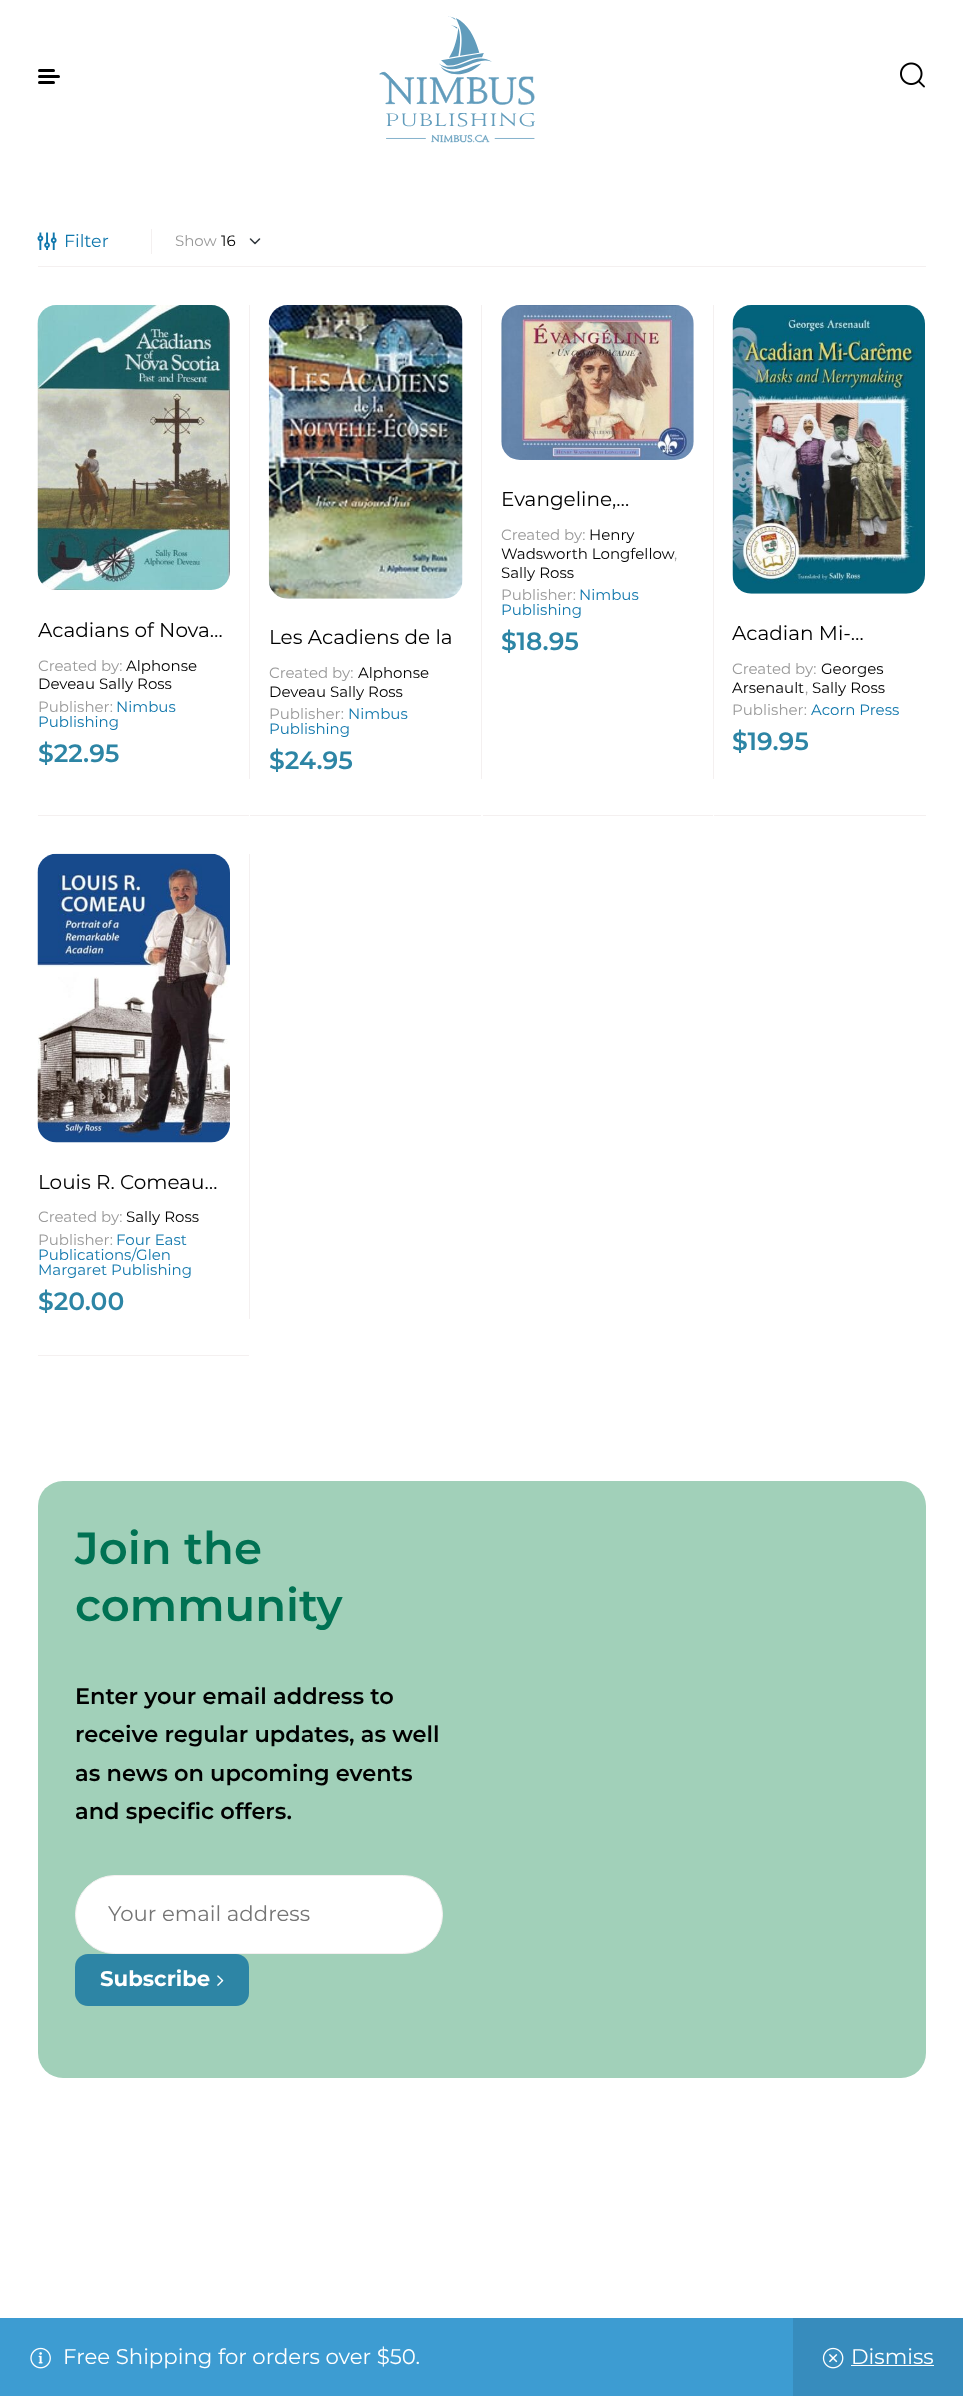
<!DOCTYPE html>
<meta charset="utf-8">
<style>body { margin: 0 } canvas { display: block }</style>
<canvas id="canvas" width="963" height="2396"></canvas>
<script type="module">
  const canvas = document.getElementById("canvas");
  const ctx = canvas.getContext("2d");
  ctx.miterLimit = 4;
  ctx.fontKerning = "normal";
  async function loadImage(src) {
    const img = new Image();
    img.src = src;
    await img.decode();
    return img;
  }

  ctx.fillStyle = "#ffffff";
  ctx.fillRect(0, 0, 963, 2396);
  ctx.fillStyle = "#000000";
  ctx.beginPath();
  ctx.roundRect(38, 69, 17, 3, 1.5);
  ctx.fill();
  ctx.beginPath();
  ctx.roundRect(38, 75, 22, 3, 1.5);
  ctx.fill();
  ctx.beginPath();
  ctx.roundRect(38, 81, 17, 3, 1.5);
  ctx.fill();
  ctx.drawImage(await loadImage("img1.png"), 379, 16, 156, 127);
  ctx.drawImage(await loadImage("img2.png"), 900, 62, 25, 26);
  ctx.fillStyle = "#f4f0f0";
  ctx.fillRect(38, 266, 888, 1);
  ctx.drawImage(await loadImage("img3.png"), 37, 232, 20, 18);
  ctx.font = "17.5px Montserrat";
  ctx.fillStyle = "#1077ac";
  ctx.fillText("Filter", 64, 247);
  ctx.fillStyle = "#f4f0f0";
  ctx.fillRect(151, 229, 1, 25);
  ctx.font = "15px Montserrat";
  ctx.fillStyle = "#999999";
  ctx.fillText("Show", 175, 246);
  ctx.beginPath();
  ctx.moveTo(250.5, 239);
  ctx.lineTo(255, 243.5);
  ctx.lineTo(259.5, 239);
  ctx.strokeStyle = "#343a40";
  ctx.lineWidth = 1.6;
  ctx.lineCap = "round";
  ctx.lineJoin = "round";
  ctx.stroke();
  ctx.fillStyle = "#000000";
  ctx.fillText("16", 221, 246);
  ctx.fillStyle = "#f4f0f0";
  ctx.fillRect(713, 305, 1, 474);
  ctx.drawImage(await loadImage("img4.png"), 501, 305, 193, 155);
  ctx.font = "20px Montserrat";
  ctx.fillStyle = "#000000";
  ctx.fillText("Evangeline,…", 501, 506);
  ctx.font = "15px Montserrat";
  ctx.fillStyle = "#999999";
  ctx.fillText("Created by:", 501, 540);
  ctx.fillStyle = "#000000";
  ctx.fillText("Henry", 589, 540);
  ctx.fillText("Wadsworth Longfellow", 501, 559);
  ctx.fillStyle = "#999999";
  ctx.fillText(",", 674, 559);
  ctx.fillStyle = "#000000";
  ctx.fillText("Sally Ross", 501, 578);
  ctx.fillStyle = "#999999";
  ctx.fillText("Publisher:", 501, 600);
  ctx.fillStyle = "#1077ac";
  ctx.fillText("Nimbus", 579, 600);
  ctx.fillText("Publishing", 501, 615);
  ctx.font = "600 25px Montserrat";
  ctx.fillStyle = "#2d85a5";
  ctx.fillText("$18.95", 501, 650);
  ctx.fillStyle = "#f4f0f0";
  ctx.fillRect(483, 815, 230, 1);
  ctx.fillRect(249, 305, 1, 474);
  ctx.drawImage(await loadImage("img5.png"), 37, 305, 193, 285);
  ctx.font = "20px Montserrat";
  ctx.fillStyle = "#000000";
  ctx.fillText("Acadians of Nova…", 38, 637);
  ctx.font = "15px Montserrat";
  ctx.fillStyle = "#999999";
  ctx.fillText("Created by:", 38, 671);
  ctx.fillStyle = "#000000";
  ctx.fillText("Alphonse", 126, 671);
  ctx.fillText("Deveau Sally Ross", 38, 689);
  ctx.fillStyle = "#999999";
  ctx.fillText("Publisher:", 38, 712);
  ctx.fillStyle = "#1077ac";
  ctx.fillText("Nimbus", 116, 712);
  ctx.fillText("Publishing", 38, 727);
  ctx.font = "600 25px Montserrat";
  ctx.fillStyle = "#2d85a5";
  ctx.fillText("$22.95", 38, 762);
  ctx.fillStyle = "#f4f0f0";
  ctx.fillRect(38, 815, 211, 1);
  ctx.fillRect(481, 305, 1, 474);
  ctx.drawImage(await loadImage("img6.png"), 268, 305, 195, 294);
  ctx.font = "20px Montserrat";
  ctx.fillStyle = "#000000";
  ctx.fillText("Les Acadiens de la", 269, 644);
  ctx.font = "15px Montserrat";
  ctx.fillStyle = "#999999";
  ctx.fillText("Created by:", 269, 678);
  ctx.fillStyle = "#000000";
  ctx.fillText("Alphonse", 358, 678);
  ctx.fillText("Deveau Sally Ross", 269, 697);
  ctx.fillStyle = "#999999";
  ctx.fillText("Publisher:", 269, 719);
  ctx.fillStyle = "#1077ac";
  ctx.fillText("Nimbus", 348, 719);
  ctx.fillText("Publishing", 269, 734);
  ctx.font = "600 25px Montserrat";
  ctx.fillStyle = "#2d85a5";
  ctx.fillText("$24.95", 269, 769);
  ctx.fillStyle = "#f4f0f0";
  ctx.fillRect(250, 815, 231, 1);
  ctx.drawImage(await loadImage("img7.png"), 732, 305, 193, 289);
  ctx.font = "20px Montserrat";
  ctx.fillStyle = "#000000";
  ctx.fillText("Acadian Mi-…", 732, 640);
  ctx.font = "15px Montserrat";
  ctx.fillStyle = "#999999";
  ctx.fillText("Created by:", 732, 674);
  ctx.fillStyle = "#000000";
  ctx.fillText("Georges", 821, 674);
  ctx.fillText("Arsenault", 732, 693);
  ctx.fillStyle = "#999999";
  ctx.fillText(",", 805, 693);
  ctx.fillStyle = "#000000";
  ctx.fillText("Sally Ross", 812, 693);
  ctx.fillStyle = "#999999";
  ctx.fillText("Publisher:", 732, 715);
  ctx.fillStyle = "#1077ac";
  ctx.fillText("Acorn Press", 811, 715);
  ctx.font = "600 25px Montserrat";
  ctx.fillStyle = "#2d85a5";
  ctx.fillText("$19.95", 732, 750);
  ctx.fillStyle = "#f4f0f0";
  ctx.fillRect(714, 815, 212, 1);
  ctx.fillRect(249, 854, 1, 465);
  ctx.drawImage(await loadImage("img8.png"), 37, 853, 193, 290);
  ctx.font = "20px Montserrat";
  ctx.fillStyle = "#000000";
  ctx.fillText("Louis R. Comeau…", 38, 1189);
  ctx.font = "15px Montserrat";
  ctx.fillStyle = "#999999";
  ctx.fillText("Created by:", 38, 1222);
  ctx.fillStyle = "#000000";
  ctx.fillText("Sally Ross", 126, 1222);
  ctx.fillStyle = "#999999";
  ctx.fillText("Publisher:", 38, 1245);
  ctx.fillStyle = "#1077ac";
  ctx.fillText("Four East", 116, 1245);
  ctx.fillText("Publications/Glen", 38, 1260);
  ctx.fillText("Margaret Publishing", 38, 1275);
  ctx.font = "600 25px Montserrat";
  ctx.fillStyle = "#2d85a5";
  ctx.fillText("$20.00", 38, 1310);
  ctx.fillStyle = "#f4f0f0";
  ctx.fillRect(38, 1355, 211, 1);
  ctx.fillStyle = "#a1d0b9";
  ctx.beginPath();
  ctx.roundRect(38, 1481, 445, 597, [25, 0, 0, 25]);
  ctx.fill();
  ctx.font = "600 45px Montserrat";
  ctx.fillStyle = "#007253";
  ctx.fillText("Join the", 75, 1564);
  ctx.fillText("community", 75, 1621);
  ctx.font = "600 22.5px Montserrat";
  ctx.fillStyle = "#000000";
  ctx.fillText("Enter your email address to", 75, 1704);
  ctx.fillText("receive regular updates, as well", 75, 1742);
  ctx.fillText("as news on upcoming events", 75, 1781);
  ctx.fillText("and specific offers.", 75, 1819);
  ctx.fillStyle = "#ffffff";
  ctx.beginPath();
  ctx.roundRect(75.5, 1875.5, 367, 78, 39);
  ctx.fill();
  ctx.strokeStyle = "#f4f0f0";
  ctx.lineWidth = 1;
  ctx.lineJoin = "miter";
  ctx.stroke();
  ctx.font = "21.25px Montserrat";
  ctx.fillStyle = "#757575";
  ctx.fillText("Your email address", 108, 1921);
  ctx.fillStyle = "#2d85a5";
  ctx.beginPath();
  ctx.roundRect(75, 1954, 174, 52, 13);
  ctx.fill();
  ctx.font = "bold 21.25px Montserrat";
  ctx.fillStyle = "#ffffff";
  ctx.fillText("Subscribe", 100, 1986);
  ctx.drawImage(await loadImage("img9.png"), 217, 1975, 7, 11);
  ctx.fillStyle = "#a1d0b9";
  ctx.beginPath();
  ctx.roundRect(483, 1481, 443, 597, [0, 25, 25, 0]);
  ctx.fill();
  ctx.fillStyle = "#3d9cd2";
  ctx.fillRect(0, 2318, 793, 78);
  ctx.drawImage(await loadImage("img10.png"), 30, 2347, 21, 22);
  ctx.font = "21.25px Montserrat";
  ctx.fillStyle = "#ffffff";
  ctx.fillText("Free Shipping for orders over $50.", 63, 2364);
  ctx.fillStyle = "#378cbd";
  ctx.fillRect(793, 2318, 170, 78);
  ctx.drawImage(await loadImage("img11.png"), 822, 2347, 22, 22);
  ctx.fillStyle = "#ffffff";
  ctx.fillText("Dismiss", 851, 2364);
  ctx.fillRect(851, 2365, 83, 1);
</script>
